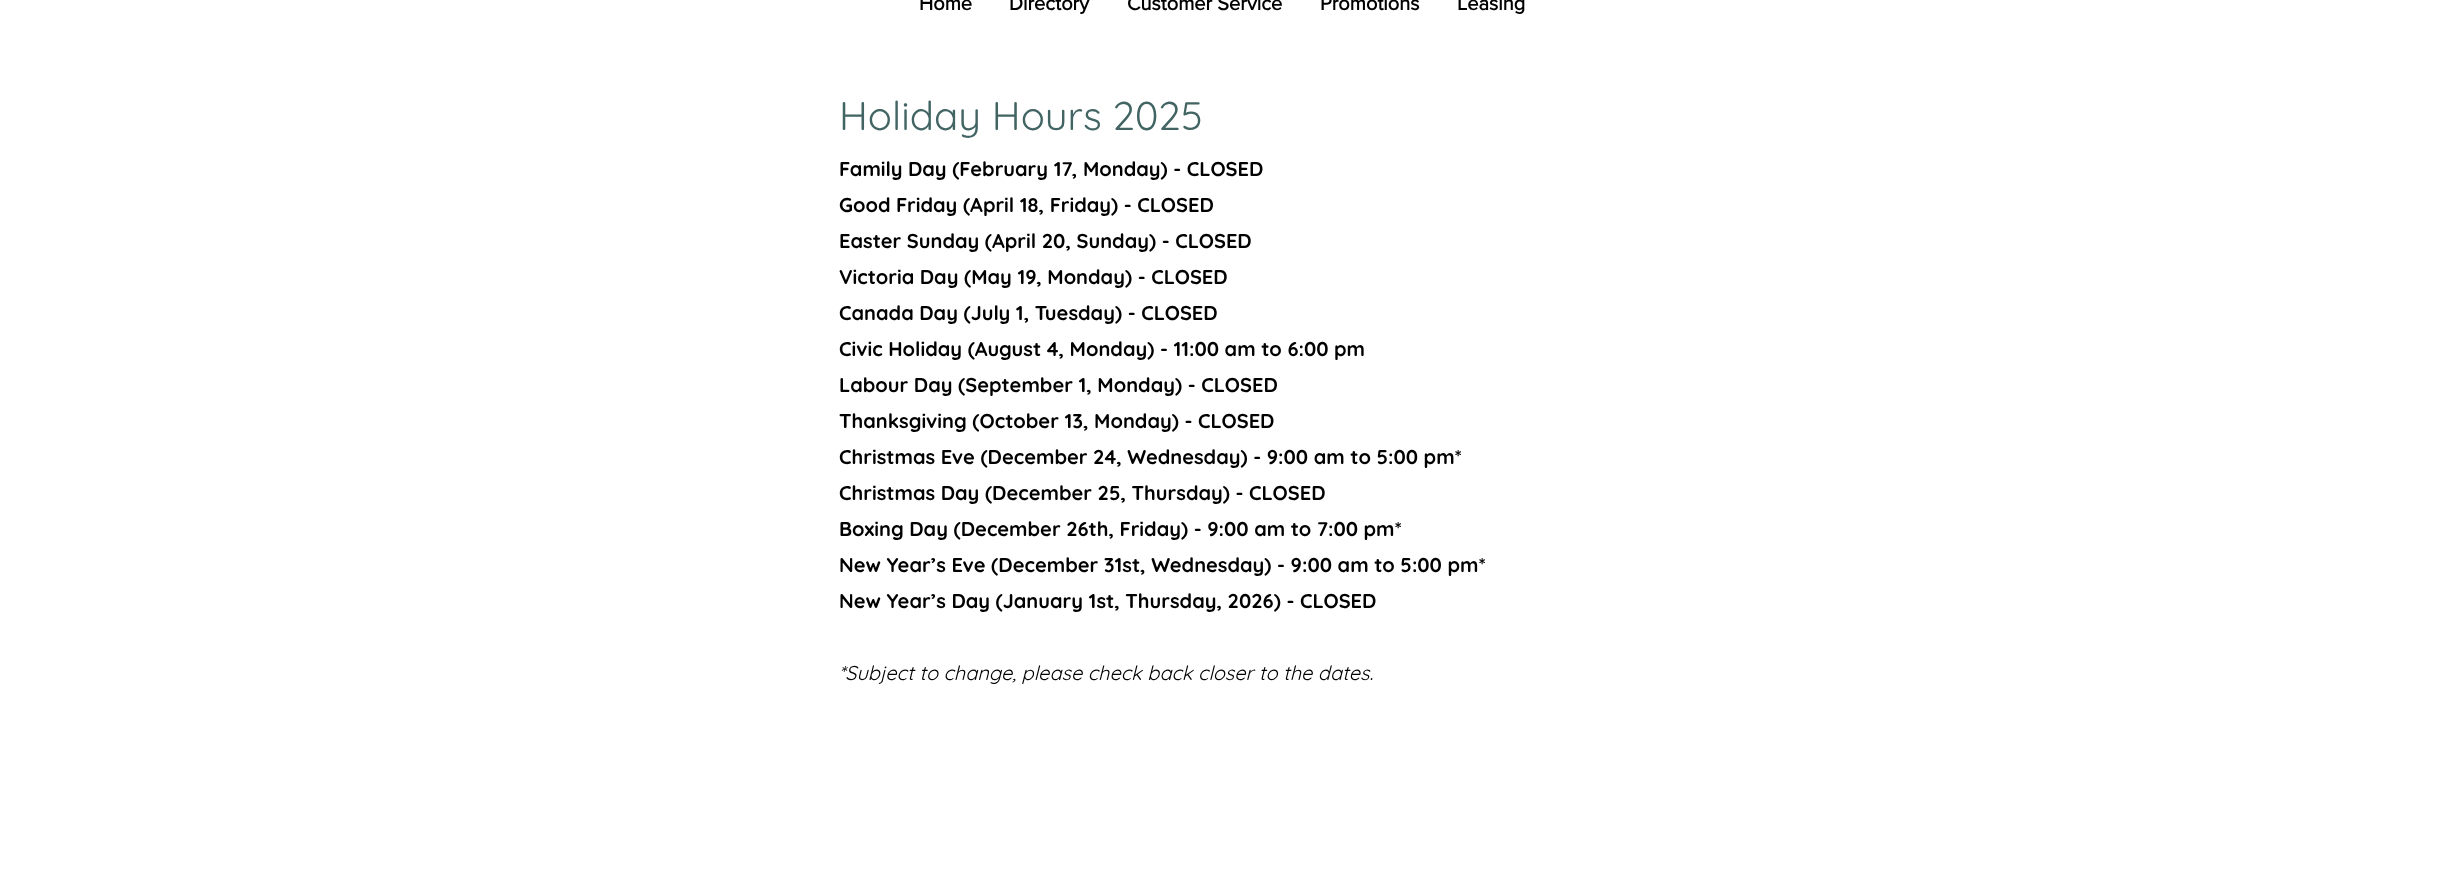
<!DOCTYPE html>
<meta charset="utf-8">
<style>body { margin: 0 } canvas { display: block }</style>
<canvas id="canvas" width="2444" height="896"></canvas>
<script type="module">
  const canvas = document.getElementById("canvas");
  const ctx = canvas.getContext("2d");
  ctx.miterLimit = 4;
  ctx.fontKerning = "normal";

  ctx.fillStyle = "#ffffff";
  ctx.fillRect(0, 0, 2444, 896);
  ctx.font = "bold 20px 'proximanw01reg'";
  ctx.fillStyle = "#000000";
  ctx.fillText("Home", 919, 10);
  ctx.fillText("Directory", 1009, 10);
  ctx.fillText("Customer Service", 1127, 10);
  ctx.fillText("Promotions", 1320, 10);
  ctx.fillText("Leasing", 1457, 10);
  ctx.font = "40px Quicksand";
  ctx.fillStyle = "#426564";
  ctx.fillText("Holiday Hours 2025", 839, 130);
  ctx.font = "bold 20px Quicksand";
  ctx.fillStyle = "#000000";
  ctx.fillText("Family Day (February 17, Monday) - CLOSED", 839, 176);
  ctx.fillText("Good Friday (April 18, Friday) - CLOSED", 839, 212);
  ctx.fillText("Easter Sunday (April 20, Sunday) - CLOSED", 839, 248);
  ctx.fillText("Victoria Day (May 19, Monday) - CLOSED", 839, 284);
  ctx.fillText("Canada Day (July 1, Tuesday) - CLOSED", 839, 320);
  ctx.fillText("Civic Holiday (August 4, Monday) - 11:00 am to 6:00 pm", 839, 356);
  ctx.fillText("Labour Day (September 1, Monday) - CLOSED", 839, 392);
  ctx.fillText("Thanksgiving (October 13, Monday) - CLOSED", 839, 428);
  ctx.fillText("Christmas Eve (December 24, Wednesday) - 9:00 am to 5:00 pm*", 839, 464);
  ctx.fillText("Christmas Day (December 25, Thursday) - CLOSED", 839, 500);
  ctx.fillText("Boxing Day (December 26th, Friday) - 9:00 am to 7:00 pm*", 839, 536);
  ctx.fillText("New Year’s Eve (December 31st, Wednesday) - 9:00 am to 5:00 pm*", 839, 572);
  ctx.fillText("New Year’s Day (January 1st, Thursday, 2026) - CLOSED", 839, 608);
  ctx.font = "italic 20px Quicksand";
  ctx.fillText("*Subject to change, please check back closer to the dates.", 839, 680);
</script>
